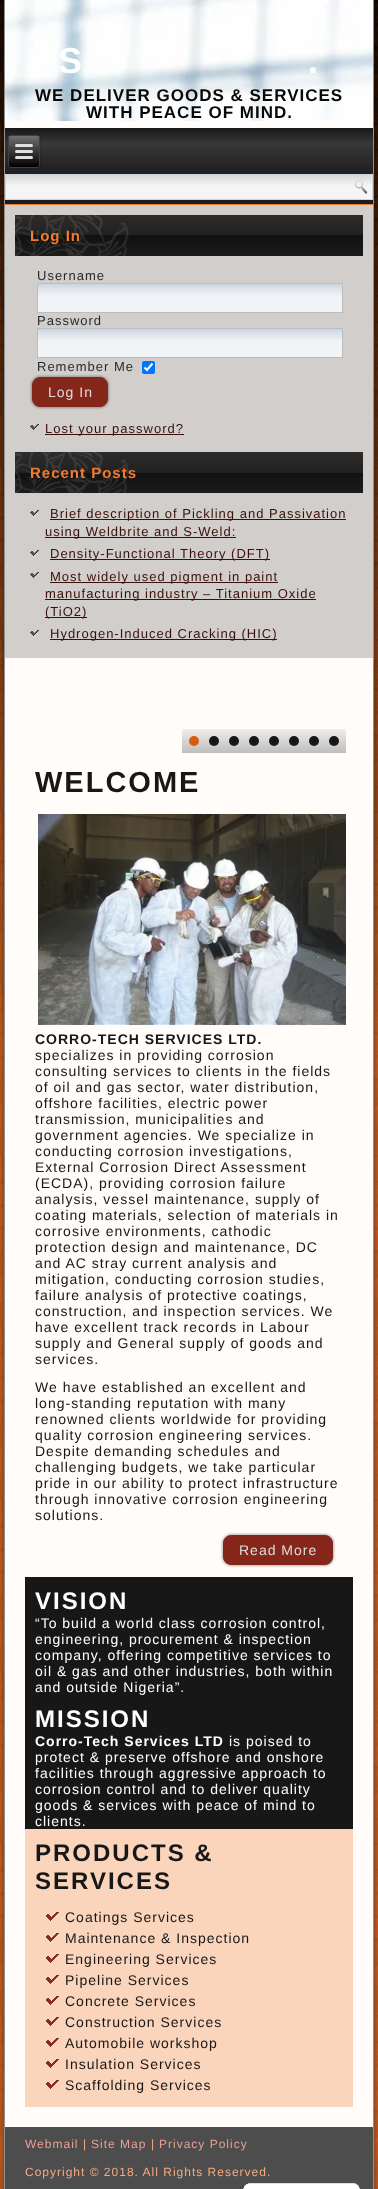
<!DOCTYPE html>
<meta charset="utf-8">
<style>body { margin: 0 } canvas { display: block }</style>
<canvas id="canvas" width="378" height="2189"></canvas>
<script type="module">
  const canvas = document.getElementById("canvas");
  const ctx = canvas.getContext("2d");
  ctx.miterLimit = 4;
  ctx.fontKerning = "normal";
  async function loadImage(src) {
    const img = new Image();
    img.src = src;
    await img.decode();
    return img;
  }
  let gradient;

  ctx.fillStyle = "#ffffff";
  ctx.fillRect(0, 0, 378, 2189);
  ctx.drawImage(await loadImage("img1.png"), 0, 0, 378, 2189);
  ctx.fillStyle = "rgba(0, 0, 0, 0.3)";
  ctx.filter = "blur(2.5px)";
  ctx.beginPath();
  ctx.rect(1, -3, 376, 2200);
  ctx.fill();
  ctx.filter = "none";
  ctx.fillStyle = "#fffcfa";
  ctx.fillRect(5, 121, 368, 2006);
  ctx.fillStyle = "#8f8f8f";
  ctx.fillRect(373, 0, 1, 2189);
  ctx.fillRect(4, 0, 1, 2189);
  ctx.drawImage(await loadImage("img2.png"), 5, 0, 368, 121);
  ctx.letterSpacing = "2px";
  ctx.font = "bold 36px Liberation Sans";
  ctx.fillStyle = "#ffffff";
  ctx.fillText("S", 58, 73);
  ctx.fillText(".", 308, 73);
  ctx.letterSpacing = "1px";
  ctx.font = "bold 17px Liberation Sans";
  ctx.fillStyle = "#080808";
  ctx.fillText("WE DELIVER GOODS & SERVICES", 35, 101);
  ctx.fillText("WITH PEACE OF MIND.", 86, 118);
  gradient = ctx.createLinearGradient(189, 128, 189, 205);
  gradient.addColorStop(0, "#171717");
  gradient.addColorStop(0.2, "#383838");
  gradient.addColorStop(0.5, "#242424");
  gradient.addColorStop(0.8, "#141414");
  gradient.addColorStop(1, "#1f1f1f");
  ctx.fillStyle = gradient;
  ctx.fillRect(5, 128, 368, 76);
  ctx.fillStyle = "#f27b31";
  ctx.fillRect(5, 204, 368, 1);
  ctx.fillStyle = "rgba(0, 0, 0, 0.2)";
  ctx.filter = "blur(1.5px)";
  ctx.beginPath();
  ctx.roundRect(8, 135, 32, 33, 3);
  ctx.fill();
  ctx.filter = "none";
  ctx.save();
  ctx.beginPath();
  ctx.roundRect(8, 135, 32, 33, 3);
  ctx.clip();
  gradient = ctx.createLinearGradient(24, 136, 24, 167);
  gradient.addColorStop(0, "#707070");
  gradient.addColorStop(1, "#000000");
  ctx.fillStyle = gradient;
  ctx.fillRect(8, 136, 32, 31);
  ctx.restore();
  ctx.beginPath();
  ctx.roundRect(8.5, 135.5, 31, 32, 2.5);
  ctx.strokeStyle = "#404040";
  ctx.stroke();
  ctx.fillStyle = "#e0e0e0";
  ctx.beginPath();
  ctx.roundRect(15, 144, 18, 3, 1.5);
  ctx.fill();
  ctx.beginPath();
  ctx.roundRect(15, 150, 18, 3, 1.5);
  ctx.fill();
  ctx.beginPath();
  ctx.roundRect(15, 156, 18, 3, 1.5);
  ctx.fill();
  gradient = ctx.createLinearGradient(189, 175, 189, 199);
  gradient.addColorStop(0, "#d6d6d6");
  gradient.addColorStop(0.4, "#f2f2f2");
  gradient.addColorStop(0.5, "#f5f5f5");
  gradient.addColorStop(1, "#f5f5f5");
  ctx.fillStyle = gradient;
  ctx.fillRect(6, 175, 366, 24);
  ctx.strokeStyle = "#ccd6e0";
  ctx.strokeRect(5.5, 174.5, 367, 25);
  ctx.drawImage(await loadImage("img3.png"), 354, 180, 14, 14);
  ctx.fillStyle = "#d1cecc";
  ctx.fillRect(5, 205, 368, 453);
  ctx.drawImage(await loadImage("img4.png"), 15, 215, 348, 41);
  ctx.font = "bold 15px Liberation Sans";
  ctx.fillStyle = "#f27b31";
  ctx.fillText("Log In", 30, 241);
  ctx.font = "13px Liberation Sans";
  ctx.fillStyle = "#2b2b2b";
  ctx.fillText("Username", 37, 280);
  gradient = ctx.createLinearGradient(190, 284, 190, 312);
  gradient.addColorStop(0, "#ccd6e0");
  gradient.addColorStop(0.4, "#eff2f5");
  gradient.addColorStop(0.5, "#f2f5f7");
  gradient.addColorStop(1, "#f2f5f7");
  ctx.fillStyle = gradient;
  ctx.fillRect(38, 284, 304, 28);
  ctx.strokeStyle = "#bdbdbd";
  ctx.strokeRect(37.5, 283.5, 305, 29);
  ctx.fillStyle = "#2b2b2b";
  ctx.fillText("Password", 37, 325);
  gradient = ctx.createLinearGradient(190, 329, 190, 357);
  gradient.addColorStop(0, "#ccd6e0");
  gradient.addColorStop(0.4, "#eff2f5");
  gradient.addColorStop(0.5, "#f2f5f7");
  gradient.addColorStop(1, "#f2f5f7");
  ctx.fillStyle = gradient;
  ctx.fillRect(38, 329, 304, 28);
  ctx.strokeRect(37.5, 328.5, 305, 29);
  ctx.fillStyle = "#2b2b2b";
  ctx.fillText("Remember Me", 37, 371);
  ctx.fillStyle = "#0075ff";
  ctx.beginPath();
  ctx.roundRect(142, 361, 13, 13, 2);
  ctx.fill();
  ctx.beginPath();
  ctx.moveTo(144.5, 367.5);
  ctx.lineTo(147, 370);
  ctx.lineTo(152.5, 363.5);
  ctx.strokeStyle = "#ffffff";
  ctx.lineWidth = 2.1;
  ctx.stroke();
  ctx.fillStyle = "rgba(0, 0, 0, 0.3)";
  ctx.filter = "blur(1px)";
  ctx.beginPath();
  ctx.roundRect(31, 376, 78, 32, 9);
  ctx.fill();
  ctx.filter = "none";
  ctx.fillStyle = "#84261a";
  ctx.beginPath();
  ctx.roundRect(32.5, 377.5, 75, 29, 7.5);
  ctx.fill();
  ctx.strokeStyle = "#84261a";
  ctx.lineWidth = 1;
  ctx.stroke();
  ctx.font = "14px Liberation Sans";
  ctx.fillStyle = "#dedede";
  ctx.fillText("Log In", 48, 397);
  ctx.drawImage(await loadImage("img5.png"), 30, 424, 9, 6);
  ctx.fillStyle = "#3c110c";
  ctx.fillRect(45, 434, 139, 1);
  ctx.font = "13px Liberation Sans";
  ctx.fillText("Lost your password?", 45, 433);
  ctx.drawImage(await loadImage("img6.png"), 15, 452, 348, 41);
  ctx.font = "bold 15px Liberation Sans";
  ctx.fillStyle = "#f27b31";
  ctx.fillText("Recent Posts", 30, 478);
  ctx.drawImage(await loadImage("img5.png"), 30, 510, 9, 6);
  ctx.fillStyle = "#3c110c";
  ctx.fillRect(50, 519, 296, 1);
  ctx.font = "13px Liberation Sans";
  ctx.fillText("Brief description of Pickling and Passivation", 50, 518);
  ctx.fillRect(45, 537, 191, 1);
  ctx.fillText("using Weldbrite and S-Weld:", 45, 536);
  ctx.drawImage(await loadImage("img5.png"), 30, 550, 9, 6);
  ctx.fillRect(50, 559, 220, 1);
  ctx.fillText("Density-Functional Theory (DFT)", 50, 558);
  ctx.drawImage(await loadImage("img5.png"), 30, 572, 9, 6);
  ctx.fillRect(50, 582, 228, 1);
  ctx.fillText("Most widely used pigment in paint", 50, 581);
  ctx.fillRect(45, 599, 271, 1);
  ctx.fillText("manufacturing industry – Titanium Oxide", 45, 598);
  ctx.fillRect(45, 617, 42, 1);
  ctx.fillText("(TiO2)", 45, 616);
  ctx.drawImage(await loadImage("img5.png"), 30, 630, 9, 6);
  ctx.fillRect(50, 639, 227, 1);
  ctx.fillText("Hydrogen-Induced Cracking (HIC)", 50, 638);
  gradient = ctx.createLinearGradient(264, 729, 264, 753);
  gradient.addColorStop(0, "#efeeed");
  gradient.addColorStop(1, "#bfbebd");
  ctx.fillStyle = gradient;
  ctx.fillRect(182, 729, 164, 24);
  ctx.fillStyle = "#d85b0e";
  ctx.beginPath();
  ctx.arc(194, 741, 5, 0, Math.PI * 2);
  ctx.fill();
  ctx.fillStyle = "#171717";
  ctx.beginPath();
  ctx.arc(214, 741, 5, 0, Math.PI * 2);
  ctx.fill();
  ctx.beginPath();
  ctx.arc(234, 741, 5, 0, Math.PI * 2);
  ctx.fill();
  ctx.beginPath();
  ctx.arc(254, 741, 5, 0, Math.PI * 2);
  ctx.fill();
  ctx.beginPath();
  ctx.arc(274, 741, 5, 0, Math.PI * 2);
  ctx.fill();
  ctx.beginPath();
  ctx.arc(294, 741, 5, 0, Math.PI * 2);
  ctx.fill();
  ctx.beginPath();
  ctx.arc(314, 741, 5, 0, Math.PI * 2);
  ctx.fill();
  ctx.beginPath();
  ctx.arc(334, 741, 5, 0, Math.PI * 2);
  ctx.fill();
  ctx.letterSpacing = "2px";
  ctx.font = "bold 29px Liberation Sans";
  ctx.fillText("WELCOME", 35, 792);
  ctx.drawImage(await loadImage("img7.png"), 38, 814, 308, 211);
  ctx.letterSpacing = "1px";
  ctx.font = "bold 14px Liberation Sans";
  ctx.fillText("CORRO-TECH SERVICES LTD.", 35, 1044);
  ctx.font = "14px Liberation Sans";
  ctx.fillText("specializes in providing corrosion", 35, 1060);
  ctx.fillText("consulting services to clients in the fields", 35, 1076);
  ctx.fillText("of oil and gas sector, water distribution,", 35, 1092);
  ctx.fillText("offshore facilities, electric power", 35, 1108);
  ctx.fillText("transmission, municipalities and", 35, 1124);
  ctx.fillText("government agencies. We specialize in", 35, 1140);
  ctx.fillText("conducting corrosion investigations,", 35, 1156);
  ctx.fillText("External Corrosion Direct Assessment", 35, 1172);
  ctx.fillText("(ECDA), providing corrosion failure", 35, 1188);
  ctx.fillText("analysis, vessel maintenance, supply of", 35, 1204);
  ctx.fillText("coating materials, selection of materials in", 35, 1220);
  ctx.fillText("corrosive environments, cathodic", 35, 1236);
  ctx.fillText("protection design and maintenance, DC", 35, 1252);
  ctx.fillText("and AC stray current analysis and", 35, 1268);
  ctx.fillText("mitigation, conducting corrosion studies,", 35, 1284);
  ctx.fillText("failure analysis of protective coatings,", 35, 1300);
  ctx.fillText("construction, and inspection services. We", 35, 1316);
  ctx.fillText("have excellent track records in Labour", 35, 1332);
  ctx.fillText("supply and General supply of goods and", 35, 1348);
  ctx.fillText("services.", 35, 1364);
  ctx.fillText("We have established an excellent and", 35, 1392);
  ctx.fillText("long-standing reputation with many", 35, 1408);
  ctx.fillText("renowned clients worldwide for providing", 35, 1424);
  ctx.fillText("quality corrosion engineering services.", 35, 1440);
  ctx.fillText("Despite demanding schedules and", 35, 1456);
  ctx.fillText("challenging budgets, we take particular", 35, 1472);
  ctx.fillText("pride in our ability to protect infrastructure", 35, 1488);
  ctx.fillText("through innovative corrosion engineering", 35, 1504);
  ctx.fillText("solutions.", 35, 1520);
  ctx.fillStyle = "rgba(0, 0, 0, 0.3)";
  ctx.filter = "blur(1px)";
  ctx.beginPath();
  ctx.roundRect(222, 1534, 112, 32, 9);
  ctx.fill();
  ctx.filter = "none";
  ctx.fillStyle = "#84261a";
  ctx.beginPath();
  ctx.roundRect(223.5, 1535.5, 109, 29, 7.5);
  ctx.fill();
  ctx.stroke();
  ctx.fillStyle = "#dedede";
  ctx.fillText("Read More", 239, 1555);
  ctx.fillStyle = "#171717";
  ctx.fillRect(25, 1577, 328, 252);
  ctx.letterSpacing = "2px";
  ctx.font = "bold 24px Liberation Sans";
  ctx.fillStyle = "#ffffff";
  ctx.fillText("VISION", 35, 1609);
  ctx.letterSpacing = "1px";
  ctx.font = "14px Liberation Sans";
  ctx.fillText("“To build a world class corrosion control,", 35, 1628);
  ctx.fillText("engineering, procurement & inspection", 35, 1644);
  ctx.fillText("company, offering competitive services to", 35, 1660);
  ctx.fillText("oil & gas and other industries, both within", 35, 1676);
  ctx.fillText("and outside Nigeria”.", 35, 1692);
  ctx.letterSpacing = "2px";
  ctx.font = "bold 24px Liberation Sans";
  ctx.fillText("MISSION", 35, 1727);
  ctx.letterSpacing = "1px";
  ctx.font = "bold 14px Liberation Sans";
  ctx.fillText("Corro-Tech Services LTD", 35, 1746);
  ctx.font = "14px Liberation Sans";
  ctx.fillText("is poised to", 229, 1746);
  ctx.fillText("protect & preserve offshore and onshore", 35, 1762);
  ctx.fillText("facilities through aggressive approach to", 35, 1778);
  ctx.fillText("corrosion control and to deliver quality", 35, 1794);
  ctx.fillText("goods & services with peace of mind to", 35, 1810);
  ctx.fillText("clients.", 35, 1826);
  ctx.fillStyle = "#fbd4bc";
  ctx.fillRect(25, 1829, 328, 278);
  ctx.letterSpacing = "2px";
  ctx.font = "bold 24px Liberation Sans";
  ctx.fillStyle = "#171717";
  ctx.fillText("PRODUCTS &", 35, 1861);
  ctx.fillText("SERVICES", 35, 1889);
  ctx.drawImage(await loadImage("img8.png"), 46, 1912, 13, 9);
  ctx.letterSpacing = "1px";
  ctx.font = "14px Liberation Sans";
  ctx.fillText("Coatings Services", 65, 1922);
  ctx.drawImage(await loadImage("img8.png"), 46, 1933, 13, 9);
  ctx.fillText("Maintenance & Inspection", 65, 1943);
  ctx.drawImage(await loadImage("img8.png"), 46, 1954, 13, 9);
  ctx.fillText("Engineering Services", 65, 1964);
  ctx.drawImage(await loadImage("img8.png"), 46, 1975, 13, 9);
  ctx.fillText("Pipeline Services", 65, 1985);
  ctx.drawImage(await loadImage("img8.png"), 46, 1996, 13, 9);
  ctx.fillText("Concrete Services", 65, 2006);
  ctx.drawImage(await loadImage("img8.png"), 46, 2017, 13, 9);
  ctx.fillText("Construction Services", 65, 2027);
  ctx.drawImage(await loadImage("img8.png"), 46, 2038, 13, 9);
  ctx.fillText("Automobile workshop", 65, 2048);
  ctx.drawImage(await loadImage("img8.png"), 46, 2059, 13, 9);
  ctx.fillText("Insulation Services", 65, 2069);
  ctx.drawImage(await loadImage("img8.png"), 46, 2080, 13, 9);
  ctx.fillText("Scaffolding Services", 65, 2090);
  ctx.fillStyle = "#4d4d4d";
  ctx.fillRect(5, 2127, 368, 62);
  ctx.font = "12px Liberation Sans";
  ctx.fillStyle = "#ea9f95";
  ctx.fillText("Webmail", 25, 2148);
  ctx.fillStyle = "#f7ac7e";
  ctx.fillText("|", 83, 2148);
  ctx.fillStyle = "#ea9f95";
  ctx.fillText("Site Map", 91, 2148);
  ctx.fillStyle = "#f7ac7e";
  ctx.fillText("|", 151, 2148);
  ctx.fillStyle = "#ea9f95";
  ctx.fillText("Privacy Policy", 159, 2148);
  ctx.fillStyle = "#f7ac7e";
  ctx.fillText("Copyright © 2018. All Rights Reserved.", 25, 2176);
  ctx.drawImage(await loadImage("img9.png"), 243, 2183, 117, 6);
</script>
